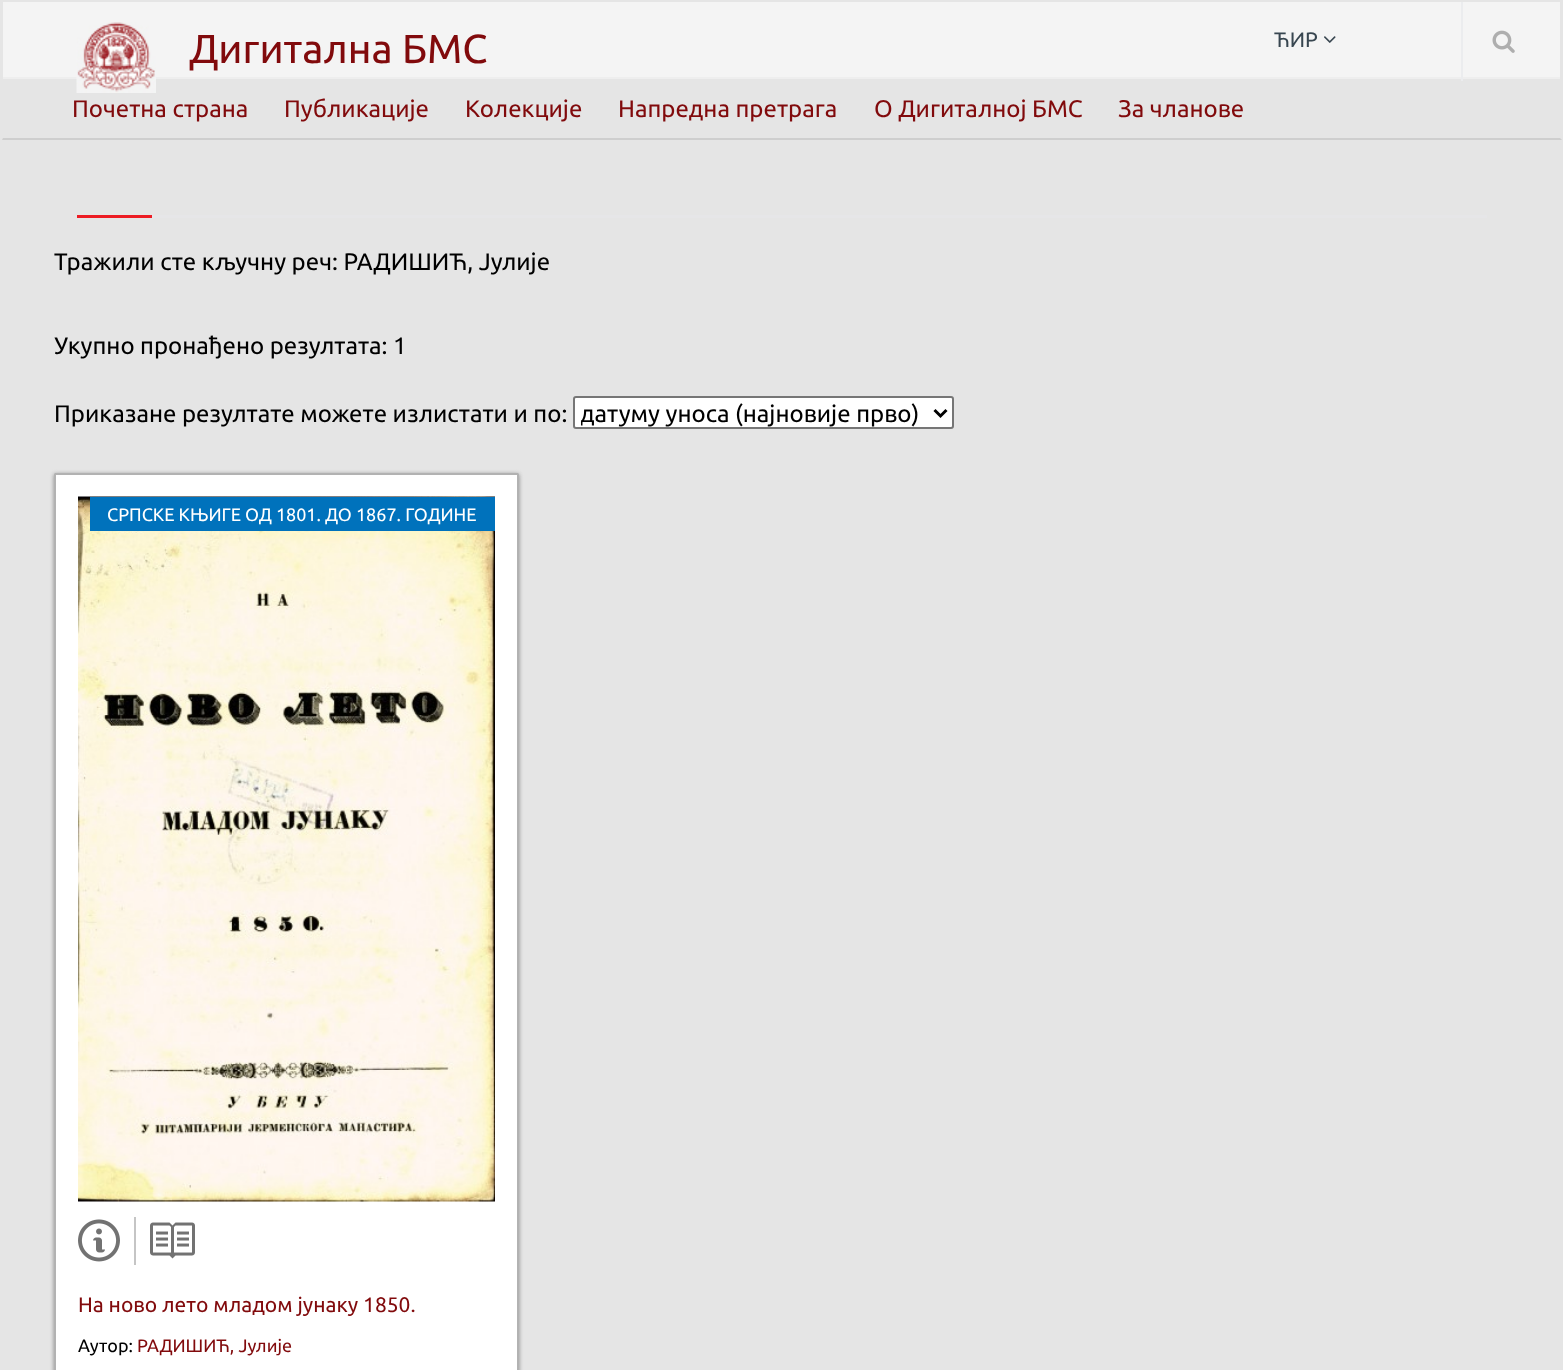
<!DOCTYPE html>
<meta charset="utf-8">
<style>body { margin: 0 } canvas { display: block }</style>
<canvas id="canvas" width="1563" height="1370"></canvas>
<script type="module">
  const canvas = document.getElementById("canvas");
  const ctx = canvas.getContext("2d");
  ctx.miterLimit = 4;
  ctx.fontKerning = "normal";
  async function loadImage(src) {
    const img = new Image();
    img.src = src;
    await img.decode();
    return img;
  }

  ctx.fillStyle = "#e5e5e5";
  ctx.fillRect(0, 0, 1563, 1370);
  ctx.fillStyle = "#cecece";
  ctx.beginPath();
  ctx.moveTo(1562, 140);
  ctx.lineTo(2, 140);
  ctx.lineTo(3, 138);
  ctx.lineTo(1560, 138);
  ctx.closePath();
  ctx.fill();
  ctx.fillStyle = "#f4f4f4";
  ctx.fillRect(3, 2, 1557, 75);
  ctx.fillStyle = "#eeeeee";
  ctx.fillRect(3, 77, 1557, 2);
  ctx.drawImage(await loadImage("img1.png"), 76, 22, 80, 71);
  ctx.font = "40.5px Ubuntu";
  ctx.fillStyle = "#810a0c";
  ctx.fillText("Дигитална БМС", 189, 63);
  ctx.font = "21px Ubuntu";
  ctx.fillStyle = "#384650";
  ctx.fillText("ЋИР", 1274, 47);
  ctx.drawImage(await loadImage("img2.png"), 1324, 36, 12, 7);
  ctx.fillStyle = "#ebecee";
  ctx.fillRect(1461, 2, 2, 79);
  ctx.drawImage(await loadImage("img3.png"), 1492, 30, 23, 23);
  ctx.font = "24px Ubuntu";
  ctx.fillStyle = "#810a0c";
  ctx.fillText("Почетна страна", 72, 117);
  ctx.fillText("Публикације", 284, 117);
  ctx.fillText("Колекције", 465, 117);
  ctx.fillText("Напредна претрага", 618, 117);
  ctx.fillText("О Дигиталној БМС", 874, 117);
  ctx.fillText("За чланове", 1118, 117);
  ctx.fillStyle = "#ed1c24";
  ctx.fillRect(77, 215, 75, 3);
  ctx.fillStyle = "#e6e6e8";
  ctx.fillRect(152, 215, 1335, 3);
  ctx.fillStyle = "#000000";
  ctx.fillText("Тражили сте кључну реч: РАДИШИЋ, Јулије", 54, 270);
  ctx.fillText("Укупно пронађено резултата: 1", 54, 354);
  ctx.fillText("Приказане резултате можете излистати и по:", 54, 422);
  ctx.fillStyle = "#ffffff";
  ctx.beginPath();
  ctx.roundRect(574, 397, 379, 31, 2);
  ctx.fill();
  ctx.strokeStyle = "#767676";
  ctx.lineWidth = 2;
  ctx.stroke();
  ctx.beginPath();
  ctx.moveTo(934.5, 410);
  ctx.lineTo(940.5, 416);
  ctx.lineTo(946.5, 410);
  ctx.strokeStyle = "#000000";
  ctx.lineWidth = 3;
  ctx.stroke();
  ctx.save();
  ctx.beginPath();
  ctx.rect(581, 398, 348, 30);
  ctx.clip();
  ctx.fillStyle = "#000000";
  ctx.fillText("датуму уноса (најновије прво)", 580, 422);
  ctx.restore();
  ctx.fillStyle = "#888888";
  ctx.filter = "blur(2px)";
  ctx.beginPath();
  ctx.roundRect(54, 474, 465, 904, 1.5);
  ctx.fill();
  ctx.filter = "none";
  ctx.fillStyle = "#ffffff";
  ctx.beginPath();
  ctx.roundRect(55, 474, 463, 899, 0.5);
  ctx.fill();
  ctx.strokeStyle = "#b2b2b2";
  ctx.lineWidth = 2;
  ctx.stroke();
  ctx.drawImage(await loadImage("img4.png"), 78, 496, 417, 706);
  ctx.fillStyle = "#0072bc";
  ctx.fillRect(90, 497, 405, 34);
  ctx.font = "18px Ubuntu";
  ctx.fillStyle = "#ffffff";
  ctx.fillText("СРПСКЕ КЊИГЕ ОД 1801. ДО 1867. ГОДИНЕ", 107, 521);
  ctx.drawImage(await loadImage("img5.png"), 78, 1219, 42, 43);
  ctx.fillStyle = "#c5c5c5";
  ctx.fillRect(134, 1217, 2, 48);
  ctx.drawImage(await loadImage("img6.png"), 150, 1222, 45, 37);
  ctx.font = "21px Ubuntu";
  ctx.fillStyle = "#810a0c";
  ctx.fillText("На ново лето младом јунаку 1850.", 78, 1312);
  ctx.font = "18px Ubuntu";
  ctx.fillStyle = "#000000";
  ctx.fillText("Аутор:", 78, 1352);
  ctx.fillStyle = "#810a0c";
  ctx.fillText("РАДИШИЋ, Јулије", 137, 1352);
</script>
